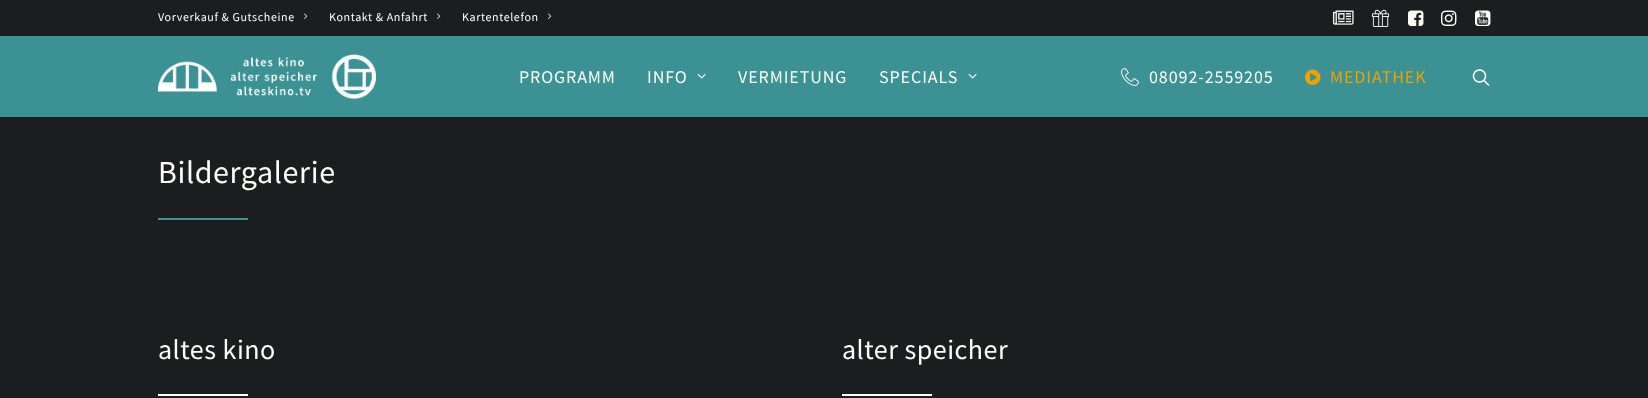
<!DOCTYPE html>
<meta charset="utf-8">
<style>body { margin: 0 } canvas { display: block }</style>
<canvas id="canvas" width="1648" height="398"></canvas>
<script type="module">
  const canvas = document.getElementById("canvas");
  const ctx = canvas.getContext("2d");
  ctx.miterLimit = 4;
  ctx.fontKerning = "normal";
  async function loadImage(src) {
    const img = new Image();
    img.src = src;
    await img.decode();
    return img;
  }

  ctx.fillStyle = "#1b1d1f";
  ctx.fillRect(0, 0, 1648, 398);
  ctx.letterSpacing = "0.6px";
  ctx.font = "12px Source Sans Pro";
  ctx.fillStyle = "#fffff9";
  ctx.fillText("Vorverkauf & Gutscheine", 158, 21);
  ctx.drawImage(await loadImage("img1.png"), 304, 13, 4, 6);
  ctx.fillText("Kontakt & Anfahrt", 329, 21);
  ctx.drawImage(await loadImage("img1.png"), 437, 13, 4, 6);
  ctx.fillText("Kartentelefon", 462, 21);
  ctx.drawImage(await loadImage("img1.png"), 548, 13, 4, 6);
  ctx.drawImage(await loadImage("img2.png"), 1333, 10, 21, 15);
  ctx.drawImage(await loadImage("img3.png"), 1372, 9, 18, 18);
  ctx.drawImage(await loadImage("img4.png"), 1408, 10, 16, 16);
  ctx.drawImage(await loadImage("img5.png"), 1441, 10, 16, 16);
  ctx.drawImage(await loadImage("img6.png"), 1475, 10, 16, 16);
  ctx.fillStyle = "#3c9195";
  ctx.fillRect(0, 36, 1648, 81);
  ctx.drawImage(await loadImage("img7.png"), 158, 54, 218, 45);
  ctx.letterSpacing = "0.9px";
  ctx.font = "18px Source Sans Pro";
  ctx.fillStyle = "#fffff9";
  ctx.fillText("PROGRAMM", 519, 83);
  ctx.fillText("INFO", 647, 83);
  ctx.drawImage(await loadImage("img8.png"), 697, 73, 9, 6);
  ctx.fillText("VERMIETUNG", 738, 83);
  ctx.fillText("SPECIALS", 879, 83);
  ctx.drawImage(await loadImage("img8.png"), 968, 73, 9, 6);
  ctx.drawImage(await loadImage("img9.png"), 1121, 67, 18, 19);
  ctx.fillText("08092-2559205", 1149, 83);
  ctx.drawImage(await loadImage("img10.png"), 1305, 69, 16, 16);
  ctx.fillStyle = "#f0a202";
  ctx.fillText("MEDIATHEK", 1330, 83);
  ctx.drawImage(await loadImage("img11.png"), 1472, 69, 18, 17);
  ctx.letterSpacing = "0.6px";
  ctx.font = "32px Source Sans Pro";
  ctx.fillStyle = "#fffff9";
  ctx.fillText("Bildergalerie", 158, 183);
  ctx.fillStyle = "#3c9195";
  ctx.fillRect(158, 218, 90, 2);
  ctx.letterSpacing = "0.5px";
  ctx.font = "28px Source Sans Pro";
  ctx.fillStyle = "#fffff9";
  ctx.fillText("altes kino", 158, 359);
  ctx.fillStyle = "#ffffff";
  ctx.fillRect(158, 394, 90, 2);
  ctx.fillStyle = "#fffff9";
  ctx.fillText("alter speicher", 842, 359);
  ctx.fillStyle = "#ffffff";
  ctx.fillRect(842, 394, 90, 2);
</script>
